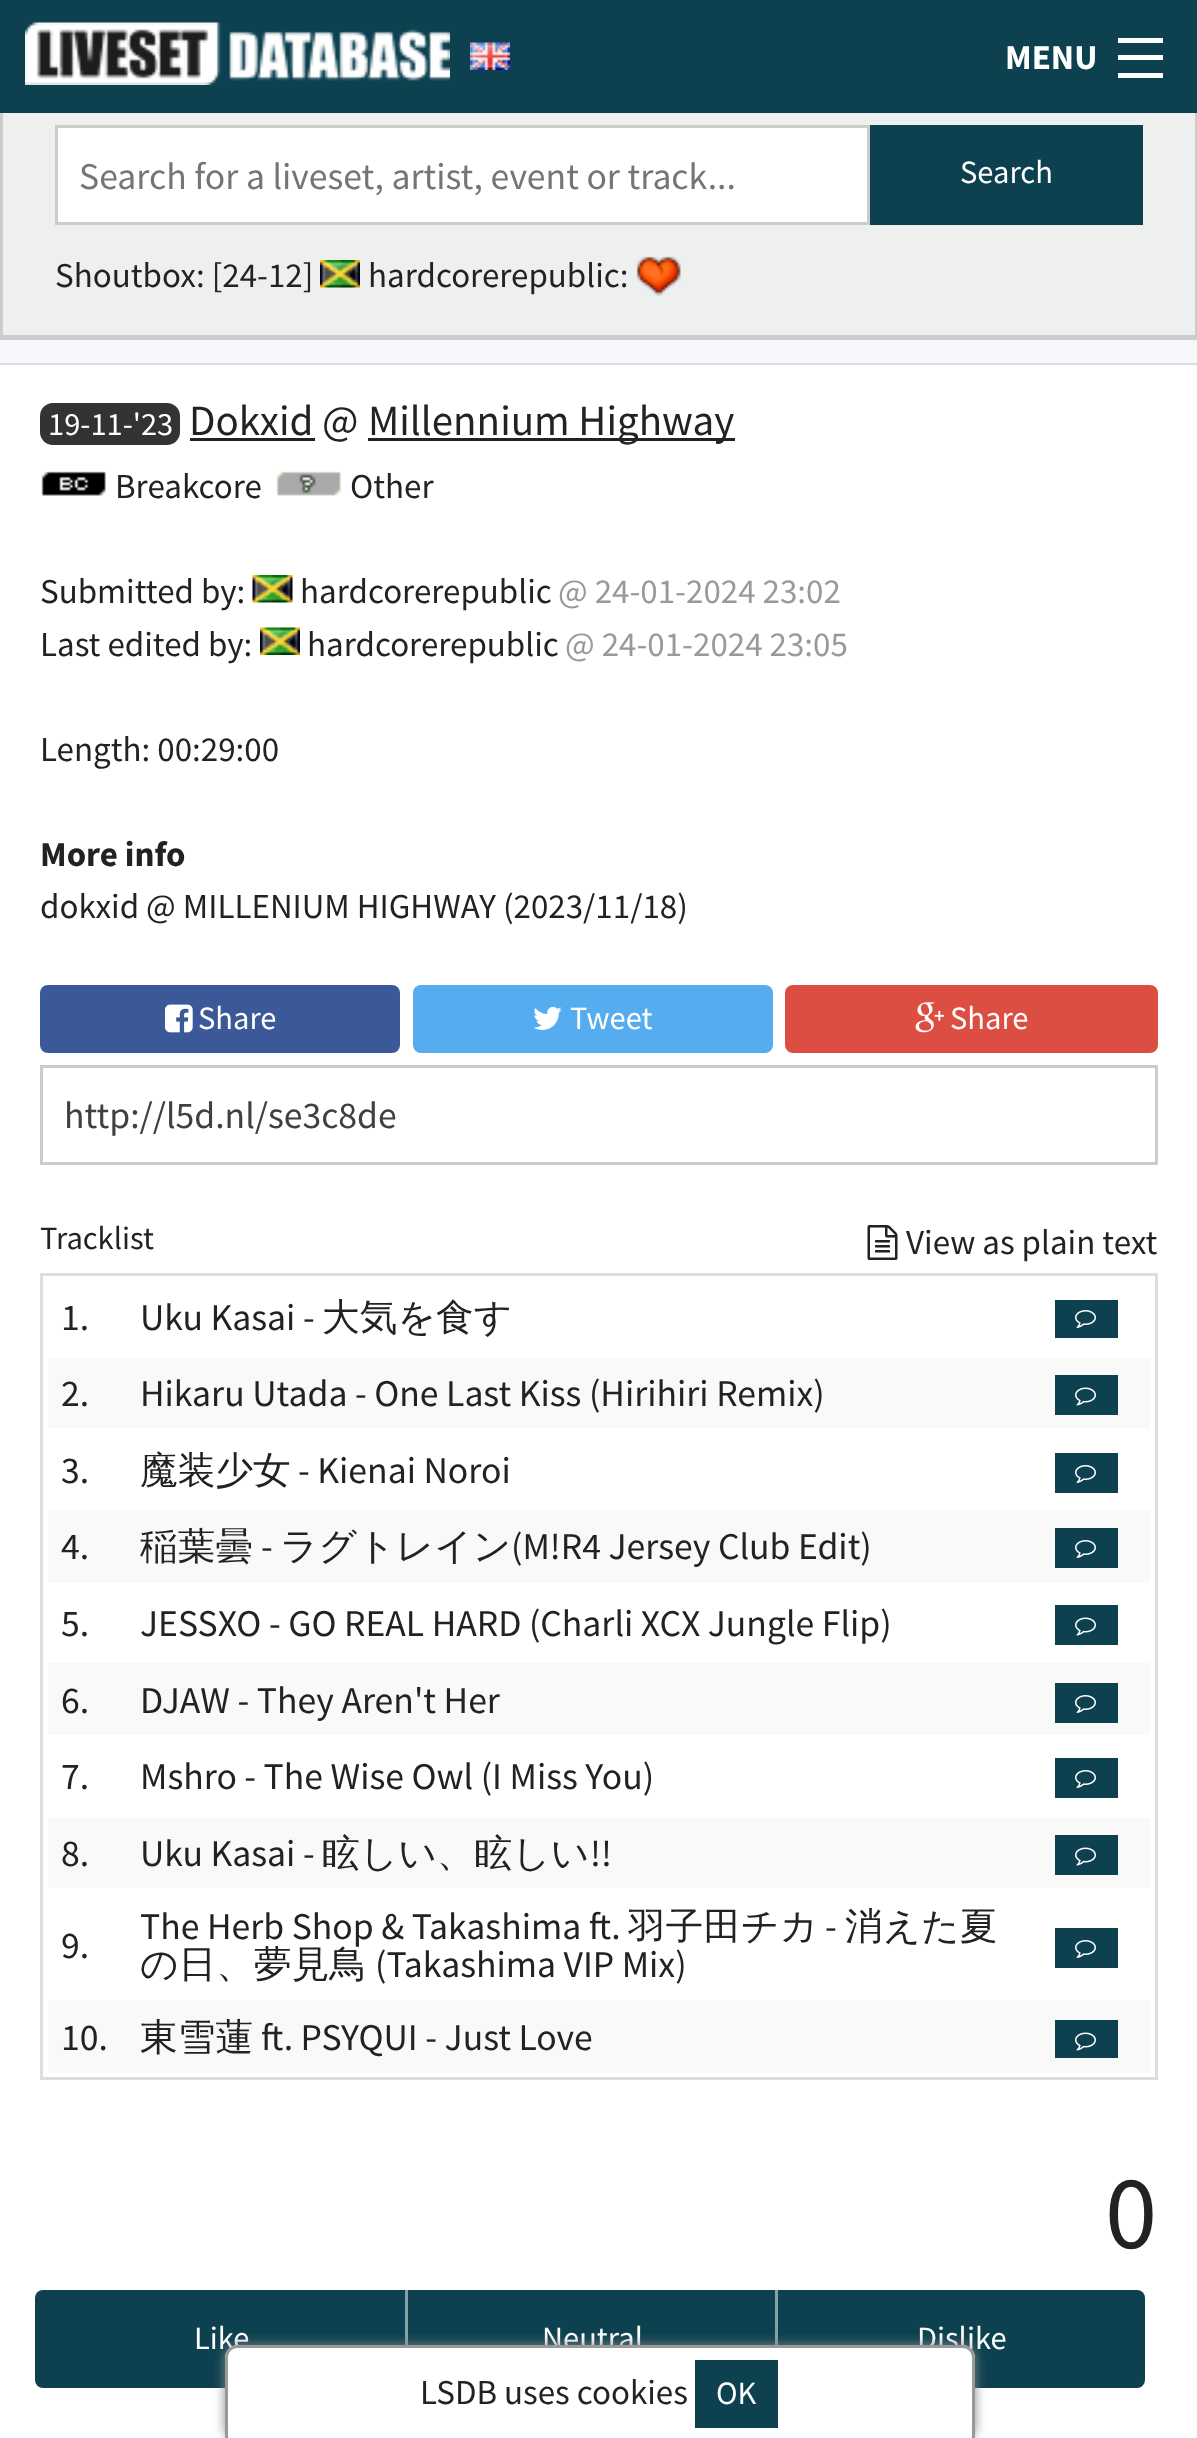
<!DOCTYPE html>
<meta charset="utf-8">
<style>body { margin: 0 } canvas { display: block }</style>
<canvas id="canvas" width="1197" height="2438"></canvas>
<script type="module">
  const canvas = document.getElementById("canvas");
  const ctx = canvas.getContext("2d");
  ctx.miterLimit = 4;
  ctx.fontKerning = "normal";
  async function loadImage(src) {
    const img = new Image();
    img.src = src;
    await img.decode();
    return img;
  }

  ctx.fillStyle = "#f6f7fa";
  ctx.fillRect(0, 0, 1197, 2438);
  ctx.fillStyle = "#0d4150";
  ctx.fillRect(0, 0, 1197, 113);
  ctx.drawImage(await loadImage("img1.png"), 25, 22, 425, 63);
  ctx.drawImage(await loadImage("img2.png"), 470, 42, 40, 28);
  ctx.font = "bold 35px Source Sans Pro";
  ctx.fillStyle = "#ffffff";
  ctx.fillText("MENU", 1005, 69);
  ctx.fillRect(1118, 73, 45, 5);
  ctx.fillRect(1118, 55, 45, 5);
  ctx.fillRect(1118, 38, 45, 5);
  ctx.fillStyle = "#eef0f0";
  ctx.fillRect(3, 113, 1192, 222);
  ctx.fillStyle = "#cccccc";
  ctx.fillRect(1195, 113, 2, 227);
  ctx.fillRect(0, 335, 1197, 5);
  ctx.fillRect(0, 113, 3, 227);
  ctx.fillStyle = "#ffffff";
  ctx.beginPath();
  ctx.rect(56.5, 126.5, 812, 97);
  ctx.fill();
  ctx.strokeStyle = "#cccccc";
  ctx.lineWidth = 3;
  ctx.stroke();
  ctx.font = "37.7px Source Sans Pro";
  ctx.fillStyle = "#757575";
  ctx.fillText("Search for a liveset, artist, event or track...", 79, 189);
  ctx.fillStyle = "#0d4150";
  ctx.fillRect(870, 125, 273, 100);
  ctx.font = "32.5px Source Sans Pro";
  ctx.fillStyle = "#ffffff";
  ctx.fillText("Search", 960, 183);
  ctx.font = "35px Source Sans Pro";
  ctx.fillStyle = "#222222";
  ctx.fillText("Shoutbox: [24-12]", 55, 287);
  ctx.drawImage(await loadImage("img3.png"), 320, 260, 40, 28);
  ctx.fillText("hardcorerepublic:", 368, 287);
  ctx.drawImage(await loadImage("img4.png"), 636, 256, 45, 40);
  ctx.fillStyle = "#dddddd";
  ctx.beginPath();
  ctx.moveTo(-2, 363);
  ctx.lineTo(-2, 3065);
  ctx.lineTo(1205, 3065);
  ctx.lineTo(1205, 363);
  ctx.closePath();
  ctx.moveTo(0, 365);
  ctx.lineTo(0, 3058);
  ctx.lineTo(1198, 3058);
  ctx.lineTo(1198, 365);
  ctx.closePath();
  ctx.fill("evenodd");
  ctx.fillStyle = "#ffffff";
  ctx.fillRect(0, 365, 1197, 2073);
  ctx.fillStyle = "#333333";
  ctx.beginPath();
  ctx.roundRect(40, 403, 140, 42, 13);
  ctx.fill();
  ctx.font = "32.5px Source Sans Pro";
  ctx.fillStyle = "#ffffff";
  ctx.fillText("19-11-'23", 48, 435);
  ctx.fillStyle = "#222222";
  ctx.fillRect(190, 438, 125, 3);
  ctx.font = "43px Source Sans Pro";
  ctx.fillText("Dokxid @", 189, 435);
  ctx.fillRect(368, 438, 367, 3);
  ctx.fillText("Millennium Highway", 368, 435);
  ctx.drawImage(await loadImage("img5.png"), 41, 471, 65, 25);
  ctx.font = "35px Source Sans Pro";
  ctx.fillText("Breakcore", 115, 498);
  ctx.drawImage(await loadImage("img6.png"), 276, 471, 65, 25);
  ctx.fillText("Other", 350, 498);
  ctx.fillText("Submitted by:", 40, 603);
  ctx.drawImage(await loadImage("img7.png"), 252, 575, 41, 28);
  ctx.fillText("hardcorerepublic", 300, 603);
  ctx.fillStyle = "#999999";
  ctx.fillText("@ 24-01-2024 23:02", 558, 603);
  ctx.fillStyle = "#222222";
  ctx.fillText("Last edited by:", 40, 656);
  ctx.drawImage(await loadImage("img8.png"), 260, 627, 40, 28);
  ctx.fillText("hardcorerepublic", 307, 656);
  ctx.fillStyle = "#999999";
  ctx.fillText("@ 24-01-2024 23:05", 565, 656);
  ctx.fillStyle = "#222222";
  ctx.fillText("Length: 00:29:00", 40, 761);
  ctx.font = "bold 35px Source Sans Pro";
  ctx.fillText("More info", 40, 866);
  ctx.font = "35px Source Sans Pro";
  ctx.fillText("dokxid @ MILLENIUM HIGHWAY (2023/11/18)", 40, 918);
  ctx.fillStyle = "#3b5998";
  ctx.beginPath();
  ctx.roundRect(40, 985, 360, 68, 8);
  ctx.fill();
  ctx.drawImage(await loadImage("img9.png"), 165, 1004, 28, 29);
  ctx.font = "32.5px Source Sans Pro";
  ctx.fillStyle = "#ffffff";
  ctx.fillText("Share", 198, 1029);
  ctx.fillStyle = "#55acee";
  ctx.beginPath();
  ctx.roundRect(413, 985, 360, 68, 8);
  ctx.fill();
  ctx.drawImage(await loadImage("img10.png"), 533, 1006, 29, 24);
  ctx.fillStyle = "#ffffff";
  ctx.fillText("Tweet", 570, 1029);
  ctx.fillStyle = "#dc4e41";
  ctx.beginPath();
  ctx.roundRect(785, 985, 373, 68, 8);
  ctx.fill();
  ctx.drawImage(await loadImage("img11.png"), 915, 1002, 30, 31);
  ctx.fillStyle = "#ffffff";
  ctx.fillText("Share", 950, 1029);
  ctx.strokeRect(41.5, 1066.5, 1115, 97);
  ctx.font = "37.7px Source Sans Pro";
  ctx.fillStyle = "#404040";
  ctx.fillText("http://l5d.nl/se3c8de", 64, 1128);
  ctx.font = "32.5px Source Sans Pro";
  ctx.fillStyle = "#222222";
  ctx.fillText("Tracklist", 40, 1249);
  ctx.drawImage(await loadImage("img12.png"), 867, 1225, 31, 35);
  ctx.font = "35px Source Sans Pro";
  ctx.fillText("View as plain text", 906, 1254);
  ctx.strokeStyle = "#dddddd";
  ctx.strokeRect(41.5, 1274.5, 1115, 804);
  ctx.font = "37.7px Source Sans Pro";
  ctx.fillText("1.", 61, 1330);
  ctx.fillText("Uku Kasai -", 140, 1330);
  ctx.font = "500 37.7px WenQuanYi Zen Hei";
  ctx.fillText("大気を食す", 322, 1330);
  ctx.fillStyle = "#0d4150";
  ctx.fillRect(1055, 1300, 63, 38);
  ctx.drawImage(await loadImage("img13.png"), 1075, 1310, 21, 18);
  ctx.fillStyle = "#f9f9f9";
  ctx.fillRect(48, 1358, 1102, 70);
  ctx.font = "37.7px Source Sans Pro";
  ctx.fillStyle = "#222222";
  ctx.fillText("2.", 61, 1406);
  ctx.fillText("Hikaru Utada - One Last Kiss (Hirihiri Remix)", 140, 1406);
  ctx.fillStyle = "#0d4150";
  ctx.fillRect(1055, 1375, 63, 40);
  ctx.drawImage(await loadImage("img14.png"), 1075, 1387, 21, 19);
  ctx.fillStyle = "#222222";
  ctx.fillText("3.", 61, 1483);
  ctx.font = "500 37.7px WenQuanYi Zen Hei";
  ctx.fillText("魔装少女", 140, 1483);
  ctx.font = "37.7px Source Sans Pro";
  ctx.fillText("- Kienai Noroi", 298, 1483);
  ctx.fillStyle = "#0d4150";
  ctx.fillRect(1055, 1453, 63, 40);
  ctx.drawImage(await loadImage("img13.png"), 1075, 1465, 21, 18);
  ctx.fillStyle = "#f9f9f9";
  ctx.fillRect(48, 1510, 1102, 73);
  ctx.fillStyle = "#222222";
  ctx.fillText("4.", 61, 1559);
  ctx.font = "500 37.7px WenQuanYi Zen Hei";
  ctx.fillText("稲葉曇", 140, 1559);
  ctx.font = "37.7px Source Sans Pro";
  ctx.fillText("-", 261, 1559);
  ctx.font = "500 37.7px WenQuanYi Zen Hei";
  ctx.fillText("ラグトレイン", 280, 1559);
  ctx.font = "37.7px Source Sans Pro";
  ctx.fillText("(M!R4 Jersey Club Edit)", 511, 1559);
  ctx.fillStyle = "#0d4150";
  ctx.fillRect(1055, 1528, 63, 40);
  ctx.drawImage(await loadImage("img13.png"), 1075, 1540, 21, 18);
  ctx.fillStyle = "#222222";
  ctx.fillText("5.", 61, 1636);
  ctx.fillText("JESSXO - GO REAL HARD (Charli XCX Jungle Flip)", 140, 1636);
  ctx.fillStyle = "#0d4150";
  ctx.fillRect(1055, 1605, 63, 40);
  ctx.drawImage(await loadImage("img14.png"), 1075, 1617, 21, 19);
  ctx.fillStyle = "#f9f9f9";
  ctx.fillRect(48, 1663, 1102, 72);
  ctx.fillStyle = "#222222";
  ctx.fillText("6.", 61, 1713);
  ctx.fillText("DJAW - They Aren't Her", 140, 1713);
  ctx.fillStyle = "#0d4150";
  ctx.fillRect(1055, 1683, 63, 40);
  ctx.drawImage(await loadImage("img13.png"), 1075, 1695, 21, 18);
  ctx.fillStyle = "#222222";
  ctx.fillText("7.", 61, 1789);
  ctx.fillText("Mshro - The Wise Owl (I Miss You)", 140, 1789);
  ctx.fillStyle = "#0d4150";
  ctx.fillRect(1055, 1758, 63, 40);
  ctx.drawImage(await loadImage("img13.png"), 1075, 1770, 21, 18);
  ctx.fillStyle = "#f9f9f9";
  ctx.fillRect(48, 1818, 1102, 70);
  ctx.fillStyle = "#222222";
  ctx.fillText("8.", 61, 1866);
  ctx.fillText("Uku Kasai -", 140, 1866);
  ctx.font = "500 37.7px WenQuanYi Zen Hei";
  ctx.fillText("眩しい、眩しい", 322, 1866);
  ctx.font = "37.7px Source Sans Pro";
  ctx.fillText("!!", 590, 1866);
  ctx.fillStyle = "#0d4150";
  ctx.fillRect(1055, 1835, 63, 40);
  ctx.drawImage(await loadImage("img14.png"), 1075, 1847, 21, 19);
  ctx.fillStyle = "#222222";
  ctx.fillText("9.", 61, 1958);
  ctx.fillText("The Herb Shop & Takashima ft.", 140, 1939);
  ctx.font = "500 37.7px WenQuanYi Zen Hei";
  ctx.fillText("羽子田チカ", 628, 1939);
  ctx.font = "37.7px Source Sans Pro";
  ctx.fillText("-", 825, 1939);
  ctx.font = "500 37.7px WenQuanYi Zen Hei";
  ctx.fillText("消えた夏", 845, 1939);
  ctx.fillText("の日、夢見鳥", 140, 1977);
  ctx.font = "37.7px Source Sans Pro";
  ctx.fillText("(Takashima VIP Mix)", 375, 1977);
  ctx.fillStyle = "#0d4150";
  ctx.fillRect(1055, 1928, 63, 40);
  ctx.drawImage(await loadImage("img13.png"), 1075, 1940, 21, 18);
  ctx.fillStyle = "#f9f9f9";
  ctx.fillRect(48, 2000, 1102, 73);
  ctx.fillStyle = "#222222";
  ctx.fillText("10.", 61, 2050);
  ctx.font = "500 37.7px WenQuanYi Zen Hei";
  ctx.fillText("東雪蓮", 140, 2050);
  ctx.font = "37.7px Source Sans Pro";
  ctx.fillText("ft. PSYQUI - Just Love", 261, 2050);
  ctx.fillStyle = "#0d4150";
  ctx.fillRect(1055, 2020, 63, 38);
  ctx.drawImage(await loadImage("img14.png"), 1075, 2032, 21, 19);
  ctx.font = "105px Source Sans Pro";
  ctx.fillStyle = "#222222";
  ctx.fillText("0", 1105, 2248);
  ctx.fillStyle = "#0d4150";
  ctx.beginPath();
  ctx.roundRect(35, 2290, 373, 98, [8, 0, 0, 8]);
  ctx.fill();
  ctx.font = "32.5px Source Sans Pro";
  ctx.fillStyle = "#ffffff";
  ctx.fillText("Like", 194, 2349);
  ctx.fillStyle = "#0d4150";
  ctx.fillRect(408, 2290, 367, 55);
  ctx.fillStyle = "#86a0a8";
  ctx.fillRect(405, 2290, 3, 55);
  ctx.fillStyle = "#ffffff";
  ctx.fillText("Neutral", 542, 2349);
  ctx.fillStyle = "#0d4150";
  ctx.beginPath();
  ctx.roundRect(775, 2290, 370, 98, [0, 8, 8, 0]);
  ctx.fill();
  ctx.fillStyle = "#86a0a8";
  ctx.fillRect(775, 2290, 3, 55);
  ctx.fillStyle = "#ffffff";
  ctx.fillText("Dislike", 917, 2349);
  ctx.fillStyle = "#888888";
  ctx.filter = "blur(6px)";
  ctx.beginPath();
  ctx.roundRect(225, 2345, 750, 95, 13);
  ctx.fill();
  ctx.filter = "none";
  ctx.fillStyle = "#ffffff";
  ctx.beginPath();
  ctx.moveTo(238, 2345);
  ctx.lineTo(962, 2345);
  ctx.bezierCurveTo(969, 2345, 975, 2351, 975, 2358);
  ctx.lineTo(975, 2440);
  ctx.lineTo(225, 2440);
  ctx.lineTo(225, 2358);
  ctx.bezierCurveTo(225, 2351, 231, 2345, 238, 2345);
  ctx.closePath();
  ctx.fill();
  ctx.fillStyle = "#999999";
  ctx.beginPath();
  ctx.moveTo(238, 2345);
  ctx.lineTo(962, 2345);
  ctx.bezierCurveTo(969, 2345, 975, 2351, 975, 2358);
  ctx.lineTo(975, 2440);
  ctx.lineTo(225, 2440);
  ctx.lineTo(225, 2358);
  ctx.bezierCurveTo(225, 2351, 231, 2345, 238, 2345);
  ctx.closePath();
  ctx.moveTo(238, 2348);
  ctx.lineTo(962, 2348);
  ctx.bezierCurveTo(968, 2348, 972, 2352, 972, 2358);
  ctx.lineTo(972, 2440);
  ctx.lineTo(228, 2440);
  ctx.lineTo(228, 2358);
  ctx.bezierCurveTo(228, 2352, 232, 2348, 238, 2348);
  ctx.closePath();
  ctx.fill("evenodd");
  ctx.font = "35px Source Sans Pro";
  ctx.fillStyle = "#222222";
  ctx.fillText("LSDB uses cookies", 420, 2404);
  ctx.fillStyle = "#0d4150";
  ctx.fillRect(695, 2360, 83, 68);
  ctx.font = "32.5px Source Sans Pro";
  ctx.fillStyle = "#ffffff";
  ctx.fillText("OK", 716, 2404);
</script>
